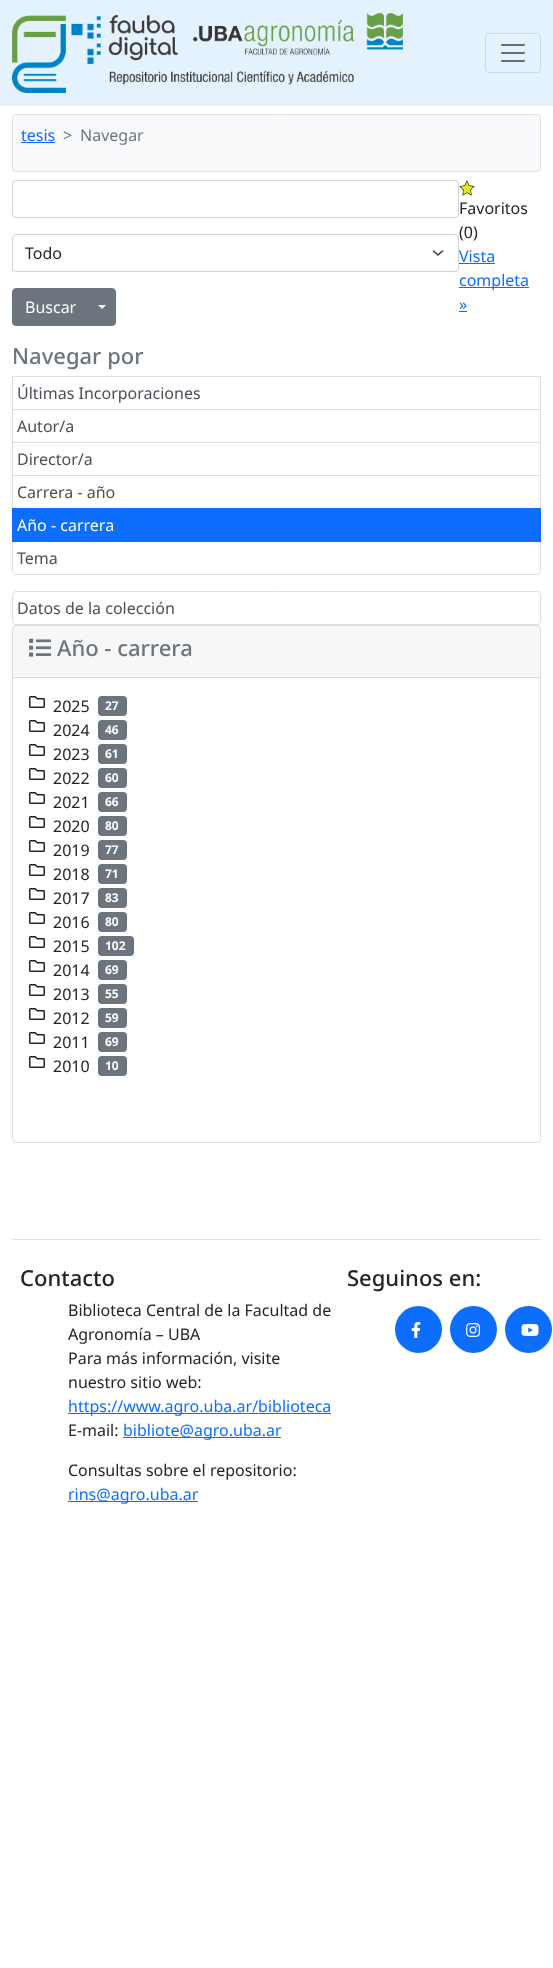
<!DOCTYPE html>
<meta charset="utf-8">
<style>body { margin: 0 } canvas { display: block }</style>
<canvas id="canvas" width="553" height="1968"></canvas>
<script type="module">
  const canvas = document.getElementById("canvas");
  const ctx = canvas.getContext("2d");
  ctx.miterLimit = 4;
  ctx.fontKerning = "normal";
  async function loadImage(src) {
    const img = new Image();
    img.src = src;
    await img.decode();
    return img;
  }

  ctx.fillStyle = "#ffffff";
  ctx.fillRect(0, 0, 553, 1968);
  ctx.fillStyle = "#e3f2fd";
  ctx.fillRect(0, 0, 553, 106);
  ctx.drawImage(await loadImage("img1.png"), 12, 13, 391, 80);
  ctx.beginPath();
  ctx.roundRect(485.5, 33.5, 55, 39, 3.5);
  ctx.strokeStyle = "#ccdae4";
  ctx.stroke();
  ctx.drawImage(await loadImage("img2.png"), 501, 44, 24, 18);
  ctx.fillStyle = "#f8f9fa";
  ctx.beginPath();
  ctx.roundRect(12.5, 114.5, 528, 57, 3.5);
  ctx.fill();
  ctx.strokeStyle = "#dee2e6";
  ctx.stroke();
  ctx.font = "16px Noto Sans";
  ctx.fillStyle = "#0d6efd";
  ctx.fillText("tesis", 21, 141);
  ctx.fillRect(21, 142, 34, 1);
  ctx.fillStyle = "#6c757d";
  ctx.fillText(">", 63, 141);
  ctx.fillText("Navegar", 80, 141);
  ctx.beginPath();
  ctx.roundRect(12.5, 180.5, 446, 37, 3.5);
  ctx.strokeStyle = "#ced4da";
  ctx.stroke();
  ctx.beginPath();
  ctx.moveTo(433.5, 251);
  ctx.lineTo(438, 255);
  ctx.lineTo(442.5, 251);
  ctx.strokeStyle = "#343a40";
  ctx.lineWidth = 1.5;
  ctx.lineCap = "round";
  ctx.lineJoin = "round";
  ctx.stroke();
  ctx.beginPath();
  ctx.roundRect(12.5, 234.5, 446, 37, 3.5);
  ctx.strokeStyle = "#ced4da";
  ctx.lineWidth = 1;
  ctx.lineJoin = "miter";
  ctx.stroke();
  ctx.fillStyle = "#212529";
  ctx.fillText("Todo", 25, 259);
  ctx.fillStyle = "#6c757d";
  ctx.beginPath();
  ctx.roundRect(12.5, 288.5, 76, 37, [3.5, 0, 0, 3.5]);
  ctx.fill();
  ctx.strokeStyle = "#6c757d";
  ctx.stroke();
  ctx.fillStyle = "#ffffff";
  ctx.fillText("Buscar", 25, 313);
  ctx.fillStyle = "#6c757d";
  ctx.beginPath();
  ctx.roundRect(88.5, 288.5, 27, 37, [0, 3.5, 3.5, 0]);
  ctx.fill();
  ctx.stroke();
  ctx.fillStyle = "#ffffff";
  ctx.beginPath();
  ctx.moveTo(98, 305);
  ctx.lineTo(106, 305);
  ctx.lineTo(102, 309);
  ctx.closePath();
  ctx.fill();
  ctx.drawImage(await loadImage("img3.png"), 459, 180, 16, 16);
  ctx.fillStyle = "#212529";
  ctx.fillText("Favoritos", 459, 214);
  ctx.fillText("(0)", 459, 238);
  ctx.fillStyle = "#0d6efd";
  ctx.fillText("Vista", 459, 262);
  ctx.fillRect(459, 263, 36, 1);
  ctx.fillRect(459, 287, 70, 1);
  ctx.fillText("completa", 459, 286);
  ctx.fillText("»", 459, 310);
  ctx.fillRect(459, 311, 8, 1);
  ctx.font = "500 22px Noto Sans";
  ctx.fillStyle = "#6c757d";
  ctx.fillText("Navegar por", 12, 364);
  ctx.strokeStyle = "#dfdfdf";
  ctx.strokeRect(12.5, 376.5, 528, 33);
  ctx.font = "16px Noto Sans";
  ctx.fillStyle = "#495057";
  ctx.fillText("Últimas Incorporaciones", 17, 399);
  ctx.fillStyle = "#dfdfdf";
  ctx.beginPath();
  ctx.moveTo(541, 410);
  ctx.lineTo(541, 443);
  ctx.lineTo(540, 442);
  ctx.lineTo(540, 410);
  ctx.closePath();
  ctx.fill();
  ctx.fillStyle = "rgba(0, 0, 0, 0.12)";
  ctx.beginPath();
  ctx.moveTo(541, 443);
  ctx.lineTo(12, 443);
  ctx.lineTo(13, 442);
  ctx.lineTo(540, 442);
  ctx.closePath();
  ctx.fill();
  ctx.beginPath();
  ctx.moveTo(12, 443);
  ctx.lineTo(12, 410);
  ctx.lineTo(13, 410);
  ctx.lineTo(13, 442);
  ctx.closePath();
  ctx.fill();
  ctx.fillStyle = "#495057";
  ctx.fillText("Autor/a", 17, 432);
  ctx.fillStyle = "#dfdfdf";
  ctx.beginPath();
  ctx.moveTo(541, 443);
  ctx.lineTo(541, 476);
  ctx.lineTo(540, 475);
  ctx.lineTo(540, 443);
  ctx.closePath();
  ctx.fill();
  ctx.fillStyle = "rgba(0, 0, 0, 0.12)";
  ctx.beginPath();
  ctx.moveTo(541, 476);
  ctx.lineTo(12, 476);
  ctx.lineTo(13, 475);
  ctx.lineTo(540, 475);
  ctx.closePath();
  ctx.fill();
  ctx.beginPath();
  ctx.moveTo(12, 476);
  ctx.lineTo(12, 443);
  ctx.lineTo(13, 443);
  ctx.lineTo(13, 475);
  ctx.closePath();
  ctx.fill();
  ctx.fillStyle = "#495057";
  ctx.fillText("Director/a", 17, 465);
  ctx.fillStyle = "#dfdfdf";
  ctx.beginPath();
  ctx.moveTo(541, 476);
  ctx.lineTo(541, 509);
  ctx.lineTo(540, 508);
  ctx.lineTo(540, 476);
  ctx.closePath();
  ctx.fill();
  ctx.fillStyle = "rgba(0, 0, 0, 0.12)";
  ctx.beginPath();
  ctx.moveTo(12, 509);
  ctx.lineTo(12, 476);
  ctx.lineTo(13, 476);
  ctx.lineTo(13, 508);
  ctx.closePath();
  ctx.fill();
  ctx.fillStyle = "#495057";
  ctx.fillText("Carrera - año", 17, 498);
  ctx.fillStyle = "#0d6efd";
  ctx.fillRect(12, 508, 529, 34);
  ctx.fillStyle = "#ffffff";
  ctx.fillText("Año - carrera", 17, 531);
  ctx.fillStyle = "#dfdfdf";
  ctx.beginPath();
  ctx.moveTo(12, 542);
  ctx.lineTo(541, 542);
  ctx.lineTo(541, 571);
  ctx.bezierCurveTo(541, 573, 539, 575, 537, 575);
  ctx.lineTo(16, 575);
  ctx.bezierCurveTo(14, 575, 12, 573, 12, 571);
  ctx.closePath();
  ctx.moveTo(13, 542);
  ctx.lineTo(540, 542);
  ctx.lineTo(540, 571);
  ctx.bezierCurveTo(540, 573, 539, 574, 537, 574);
  ctx.lineTo(16, 574);
  ctx.bezierCurveTo(14, 574, 13, 573, 13, 571);
  ctx.closePath();
  ctx.fill("evenodd");
  ctx.fillStyle = "#495057";
  ctx.fillText("Tema", 17, 564);
  ctx.beginPath();
  ctx.roundRect(12.5, 591.5, 528, 33, 3.5);
  ctx.stroke();
  ctx.fillText("Datos de la colección", 17, 614);
  ctx.beginPath();
  ctx.roundRect(12.5, 625.5, 528, 517, 3.5);
  ctx.stroke();
  ctx.fillStyle = "rgba(0, 0, 0, 0.03)";
  ctx.fillRect(13, 626, 527, 51);
  ctx.fillStyle = "#d8d8d8";
  ctx.fillRect(13, 677, 527, 1);
  ctx.drawImage(await loadImage("img4.png"), 29, 638, 23, 19);
  ctx.font = "500 22px Noto Sans";
  ctx.fillStyle = "#6c757d";
  ctx.fillText("Año - carrera", 57, 656);
  ctx.drawImage(await loadImage("img5.png"), 29, 696, 16, 12);
  ctx.font = "16px Noto Sans";
  ctx.fillStyle = "#212529";
  ctx.fillText("2025", 53, 712);
  ctx.fillStyle = "#6c757d";
  ctx.beginPath();
  ctx.roundRect(98, 696, 29, 20, 4);
  ctx.fill();
  ctx.font = "bold 12px Noto Sans";
  ctx.fillStyle = "#ffffff";
  ctx.fillText("27", 105, 710);
  ctx.drawImage(await loadImage("img5.png"), 29, 720, 16, 12);
  ctx.font = "16px Noto Sans";
  ctx.fillStyle = "#212529";
  ctx.fillText("2024", 53, 736);
  ctx.fillStyle = "#6c757d";
  ctx.beginPath();
  ctx.roundRect(98, 720, 29, 20, 4);
  ctx.fill();
  ctx.font = "bold 12px Noto Sans";
  ctx.fillStyle = "#ffffff";
  ctx.fillText("46", 105, 734);
  ctx.drawImage(await loadImage("img5.png"), 29, 744, 16, 12);
  ctx.font = "16px Noto Sans";
  ctx.fillStyle = "#212529";
  ctx.fillText("2023", 53, 760);
  ctx.fillStyle = "#6c757d";
  ctx.beginPath();
  ctx.roundRect(98, 744, 29, 20, 4);
  ctx.fill();
  ctx.font = "bold 12px Noto Sans";
  ctx.fillStyle = "#ffffff";
  ctx.fillText("61", 105, 758);
  ctx.drawImage(await loadImage("img5.png"), 29, 768, 16, 12);
  ctx.font = "16px Noto Sans";
  ctx.fillStyle = "#212529";
  ctx.fillText("2022", 53, 784);
  ctx.fillStyle = "#6c757d";
  ctx.beginPath();
  ctx.roundRect(98, 768, 29, 20, 4);
  ctx.fill();
  ctx.font = "bold 12px Noto Sans";
  ctx.fillStyle = "#ffffff";
  ctx.fillText("60", 105, 782);
  ctx.drawImage(await loadImage("img5.png"), 29, 792, 16, 12);
  ctx.font = "16px Noto Sans";
  ctx.fillStyle = "#212529";
  ctx.fillText("2021", 53, 808);
  ctx.fillStyle = "#6c757d";
  ctx.beginPath();
  ctx.roundRect(98, 792, 29, 20, 4);
  ctx.fill();
  ctx.font = "bold 12px Noto Sans";
  ctx.fillStyle = "#ffffff";
  ctx.fillText("66", 105, 806);
  ctx.drawImage(await loadImage("img5.png"), 29, 816, 16, 12);
  ctx.font = "16px Noto Sans";
  ctx.fillStyle = "#212529";
  ctx.fillText("2020", 53, 832);
  ctx.fillStyle = "#6c757d";
  ctx.beginPath();
  ctx.roundRect(98, 816, 29, 20, 4);
  ctx.fill();
  ctx.font = "bold 12px Noto Sans";
  ctx.fillStyle = "#ffffff";
  ctx.fillText("80", 105, 830);
  ctx.drawImage(await loadImage("img5.png"), 29, 840, 16, 12);
  ctx.font = "16px Noto Sans";
  ctx.fillStyle = "#212529";
  ctx.fillText("2019", 53, 856);
  ctx.fillStyle = "#6c757d";
  ctx.beginPath();
  ctx.roundRect(98, 840, 29, 20, 4);
  ctx.fill();
  ctx.font = "bold 12px Noto Sans";
  ctx.fillStyle = "#ffffff";
  ctx.fillText("77", 105, 854);
  ctx.drawImage(await loadImage("img5.png"), 29, 864, 16, 12);
  ctx.font = "16px Noto Sans";
  ctx.fillStyle = "#212529";
  ctx.fillText("2018", 53, 880);
  ctx.fillStyle = "#6c757d";
  ctx.beginPath();
  ctx.roundRect(98, 864, 29, 20, 4);
  ctx.fill();
  ctx.font = "bold 12px Noto Sans";
  ctx.fillStyle = "#ffffff";
  ctx.fillText("71", 105, 878);
  ctx.drawImage(await loadImage("img5.png"), 29, 888, 16, 12);
  ctx.font = "16px Noto Sans";
  ctx.fillStyle = "#212529";
  ctx.fillText("2017", 53, 904);
  ctx.fillStyle = "#6c757d";
  ctx.beginPath();
  ctx.roundRect(98, 888, 29, 20, 4);
  ctx.fill();
  ctx.font = "bold 12px Noto Sans";
  ctx.fillStyle = "#ffffff";
  ctx.fillText("83", 105, 902);
  ctx.drawImage(await loadImage("img5.png"), 29, 912, 16, 12);
  ctx.font = "16px Noto Sans";
  ctx.fillStyle = "#212529";
  ctx.fillText("2016", 53, 928);
  ctx.fillStyle = "#6c757d";
  ctx.beginPath();
  ctx.roundRect(98, 912, 29, 20, 4);
  ctx.fill();
  ctx.font = "bold 12px Noto Sans";
  ctx.fillStyle = "#ffffff";
  ctx.fillText("80", 105, 926);
  ctx.drawImage(await loadImage("img5.png"), 29, 936, 16, 12);
  ctx.font = "16px Noto Sans";
  ctx.fillStyle = "#212529";
  ctx.fillText("2015", 53, 952);
  ctx.fillStyle = "#6c757d";
  ctx.beginPath();
  ctx.roundRect(98, 936, 36, 20, 4);
  ctx.fill();
  ctx.font = "bold 12px Noto Sans";
  ctx.fillStyle = "#ffffff";
  ctx.fillText("102", 105, 950);
  ctx.drawImage(await loadImage("img5.png"), 29, 960, 16, 12);
  ctx.font = "16px Noto Sans";
  ctx.fillStyle = "#212529";
  ctx.fillText("2014", 53, 976);
  ctx.fillStyle = "#6c757d";
  ctx.beginPath();
  ctx.roundRect(98, 960, 29, 20, 4);
  ctx.fill();
  ctx.font = "bold 12px Noto Sans";
  ctx.fillStyle = "#ffffff";
  ctx.fillText("69", 105, 974);
  ctx.drawImage(await loadImage("img5.png"), 29, 984, 16, 12);
  ctx.font = "16px Noto Sans";
  ctx.fillStyle = "#212529";
  ctx.fillText("2013", 53, 1000);
  ctx.fillStyle = "#6c757d";
  ctx.beginPath();
  ctx.roundRect(98, 984, 29, 20, 4);
  ctx.fill();
  ctx.font = "bold 12px Noto Sans";
  ctx.fillStyle = "#ffffff";
  ctx.fillText("55", 105, 998);
  ctx.drawImage(await loadImage("img5.png"), 29, 1008, 16, 12);
  ctx.font = "16px Noto Sans";
  ctx.fillStyle = "#212529";
  ctx.fillText("2012", 53, 1024);
  ctx.fillStyle = "#6c757d";
  ctx.beginPath();
  ctx.roundRect(98, 1008, 29, 20, 4);
  ctx.fill();
  ctx.font = "bold 12px Noto Sans";
  ctx.fillStyle = "#ffffff";
  ctx.fillText("59", 105, 1022);
  ctx.drawImage(await loadImage("img5.png"), 29, 1032, 16, 12);
  ctx.font = "16px Noto Sans";
  ctx.fillStyle = "#212529";
  ctx.fillText("2011", 53, 1048);
  ctx.fillStyle = "#6c757d";
  ctx.beginPath();
  ctx.roundRect(98, 1032, 29, 20, 4);
  ctx.fill();
  ctx.font = "bold 12px Noto Sans";
  ctx.fillStyle = "#ffffff";
  ctx.fillText("69", 105, 1046);
  ctx.drawImage(await loadImage("img5.png"), 29, 1056, 16, 12);
  ctx.font = "16px Noto Sans";
  ctx.fillStyle = "#212529";
  ctx.fillText("2010", 53, 1072);
  ctx.fillStyle = "#6c757d";
  ctx.beginPath();
  ctx.roundRect(98, 1056, 29, 20, 4);
  ctx.fill();
  ctx.font = "bold 12px Noto Sans";
  ctx.fillStyle = "#ffffff";
  ctx.fillText("10", 105, 1070);
  ctx.fillStyle = "#dee2e6";
  ctx.fillRect(12, 1239, 529, 1);
  ctx.font = "500 22px Noto Sans";
  ctx.fillStyle = "#212529";
  ctx.fillText("Contacto", 20, 1286);
  ctx.font = "16px Noto Sans";
  ctx.fillText("Biblioteca Central de la Facultad de", 68, 1316);
  ctx.fillText("Agronomía – UBA", 68, 1340);
  ctx.fillText("Para más información, visite", 68, 1364);
  ctx.fillText("nuestro sitio web:", 68, 1388);
  ctx.fillStyle = "#0d6efd";
  ctx.fillRect(68, 1413, 263, 1);
  ctx.fillText("https://www.agro.uba.ar/biblioteca", 68, 1412);
  ctx.fillStyle = "#212529";
  ctx.fillText("E-mail:", 68, 1436);
  ctx.fillStyle = "#0d6efd";
  ctx.fillRect(123, 1437, 158, 1);
  ctx.fillText("bibliote@agro.uba.ar", 123, 1436);
  ctx.fillStyle = "#212529";
  ctx.fillText("Consultas sobre el repositorio:", 68, 1476);
  ctx.fillStyle = "#0d6efd";
  ctx.fillRect(68, 1501, 130, 1);
  ctx.fillText("rins@agro.uba.ar", 68, 1500);
  ctx.font = "500 22px Noto Sans";
  ctx.fillStyle = "#212529";
  ctx.fillText("Seguinos en:", 347, 1286);
  ctx.fillStyle = "#0d6efd";
  ctx.beginPath();
  ctx.arc(418.5, 1329.5, 23.5, 0, Math.PI * 2);
  ctx.fill();
  ctx.drawImage(await loadImage("img6.png"), 411, 1322, 10, 16);
  ctx.beginPath();
  ctx.arc(473.5, 1329.5, 23.5, 0, Math.PI * 2);
  ctx.fill();
  ctx.drawImage(await loadImage("img7.png"), 466, 1323, 15, 14);
  ctx.beginPath();
  ctx.arc(528.5, 1329.5, 23.5, 0, Math.PI * 2);
  ctx.fill();
  ctx.drawImage(await loadImage("img8.png"), 521, 1324, 18, 12);
</script>
